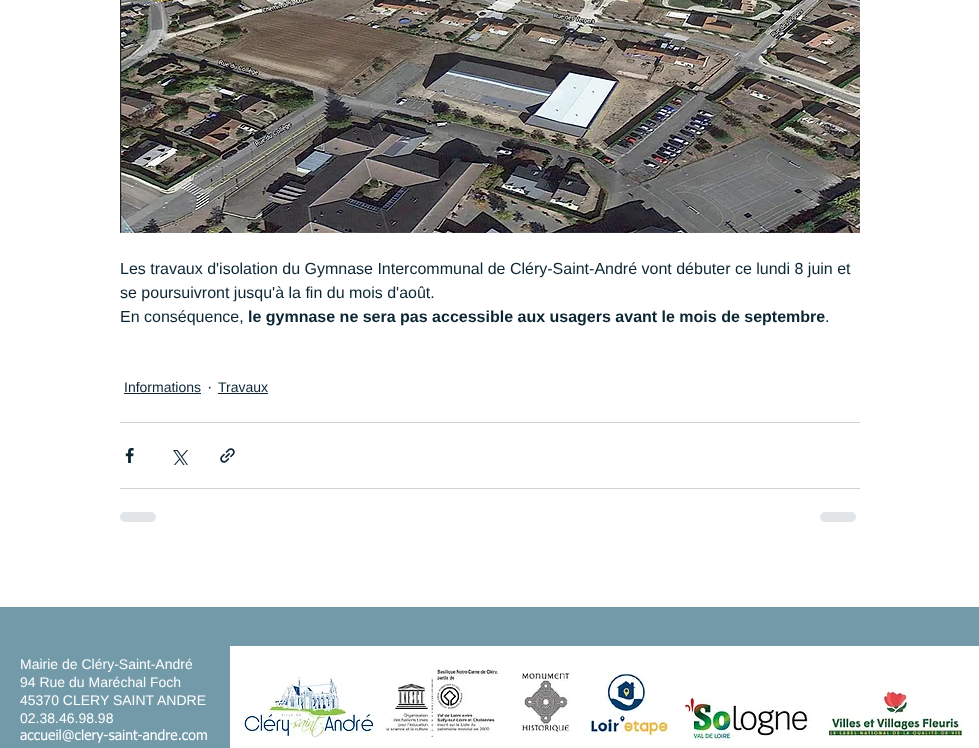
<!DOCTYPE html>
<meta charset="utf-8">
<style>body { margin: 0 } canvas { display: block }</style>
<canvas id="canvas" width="979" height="748"></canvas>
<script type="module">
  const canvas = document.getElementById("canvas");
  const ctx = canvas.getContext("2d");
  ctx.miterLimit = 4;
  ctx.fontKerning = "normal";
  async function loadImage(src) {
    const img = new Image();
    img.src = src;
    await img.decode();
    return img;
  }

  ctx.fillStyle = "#ffffff";
  ctx.fillRect(0, 0, 979, 748);
  ctx.drawImage(await loadImage("img1.png"), 120, 0, 740, 233);
  ctx.font = "16px Liberation Sans";
  ctx.fillStyle = "#0b2533";
  ctx.fillText("Les travaux d'isolation du Gymnase Intercommunal de Cléry-Saint-André vont débuter ce lundi 8 juin et", 120, 274);
  ctx.fillText("se poursuivront jusqu'à la fin du mois d'août.", 120, 298);
  ctx.fillText("En conséquence,", 120, 322);
  ctx.font = "bold 16px Liberation Sans";
  ctx.fillText("le gymnase ne sera pas accessible aux usagers avant le mois de septembre", 248, 322);
  ctx.font = "16px Liberation Sans";
  ctx.fillText(".", 825, 322);
  ctx.font = "14px Liberation Sans";
  ctx.fillText("Informations", 124, 392);
  ctx.fillRect(124, 393, 77, 1);
  ctx.font = "16px Liberation Sans";
  ctx.fillText("·", 207, 392);
  ctx.font = "14px Liberation Sans";
  ctx.fillText("Travaux", 218, 392);
  ctx.fillRect(218, 393, 50, 1);
  ctx.fillStyle = "#ced3d6";
  ctx.fillRect(120, 422, 740, 1);
  ctx.drawImage(await loadImage("img2.png"), 125, 448, 9, 15);
  ctx.drawImage(await loadImage("img3.png"), 173, 450, 15, 15);
  ctx.drawImage(await loadImage("img4.png"), 220, 448, 15, 15);
  ctx.fillRect(120, 488, 740, 1);
  ctx.fillStyle = "#e2e5e7";
  ctx.beginPath();
  ctx.roundRect(120, 512, 36, 10, 5);
  ctx.fill();
  ctx.beginPath();
  ctx.roundRect(820, 512, 36, 10, 5);
  ctx.fill();
  ctx.fillStyle = "#729aa9";
  ctx.fillRect(0, 607, 979, 141);
  ctx.fillStyle = "#ffffff";
  ctx.fillText("Mairie de Cléry-Saint-André", 20, 669);
  ctx.fillText("94 Rue du Maréchal Foch", 20, 687);
  ctx.fillText("45370 CLERY SAINT ANDRE", 20, 705);
  ctx.fillText("02.38.46.98.98", 20, 723);
  ctx.font = "14px tahoma";
  ctx.fillText("accueil@clery-saint-andre.com", 20, 740);
  ctx.fillRect(230, 646, 749, 102);
  ctx.drawImage(await loadImage("img5.png"), 241, 674, 134, 64);
  ctx.drawImage(await loadImage("img6.png"), 386, 669, 577, 73);
</script>
